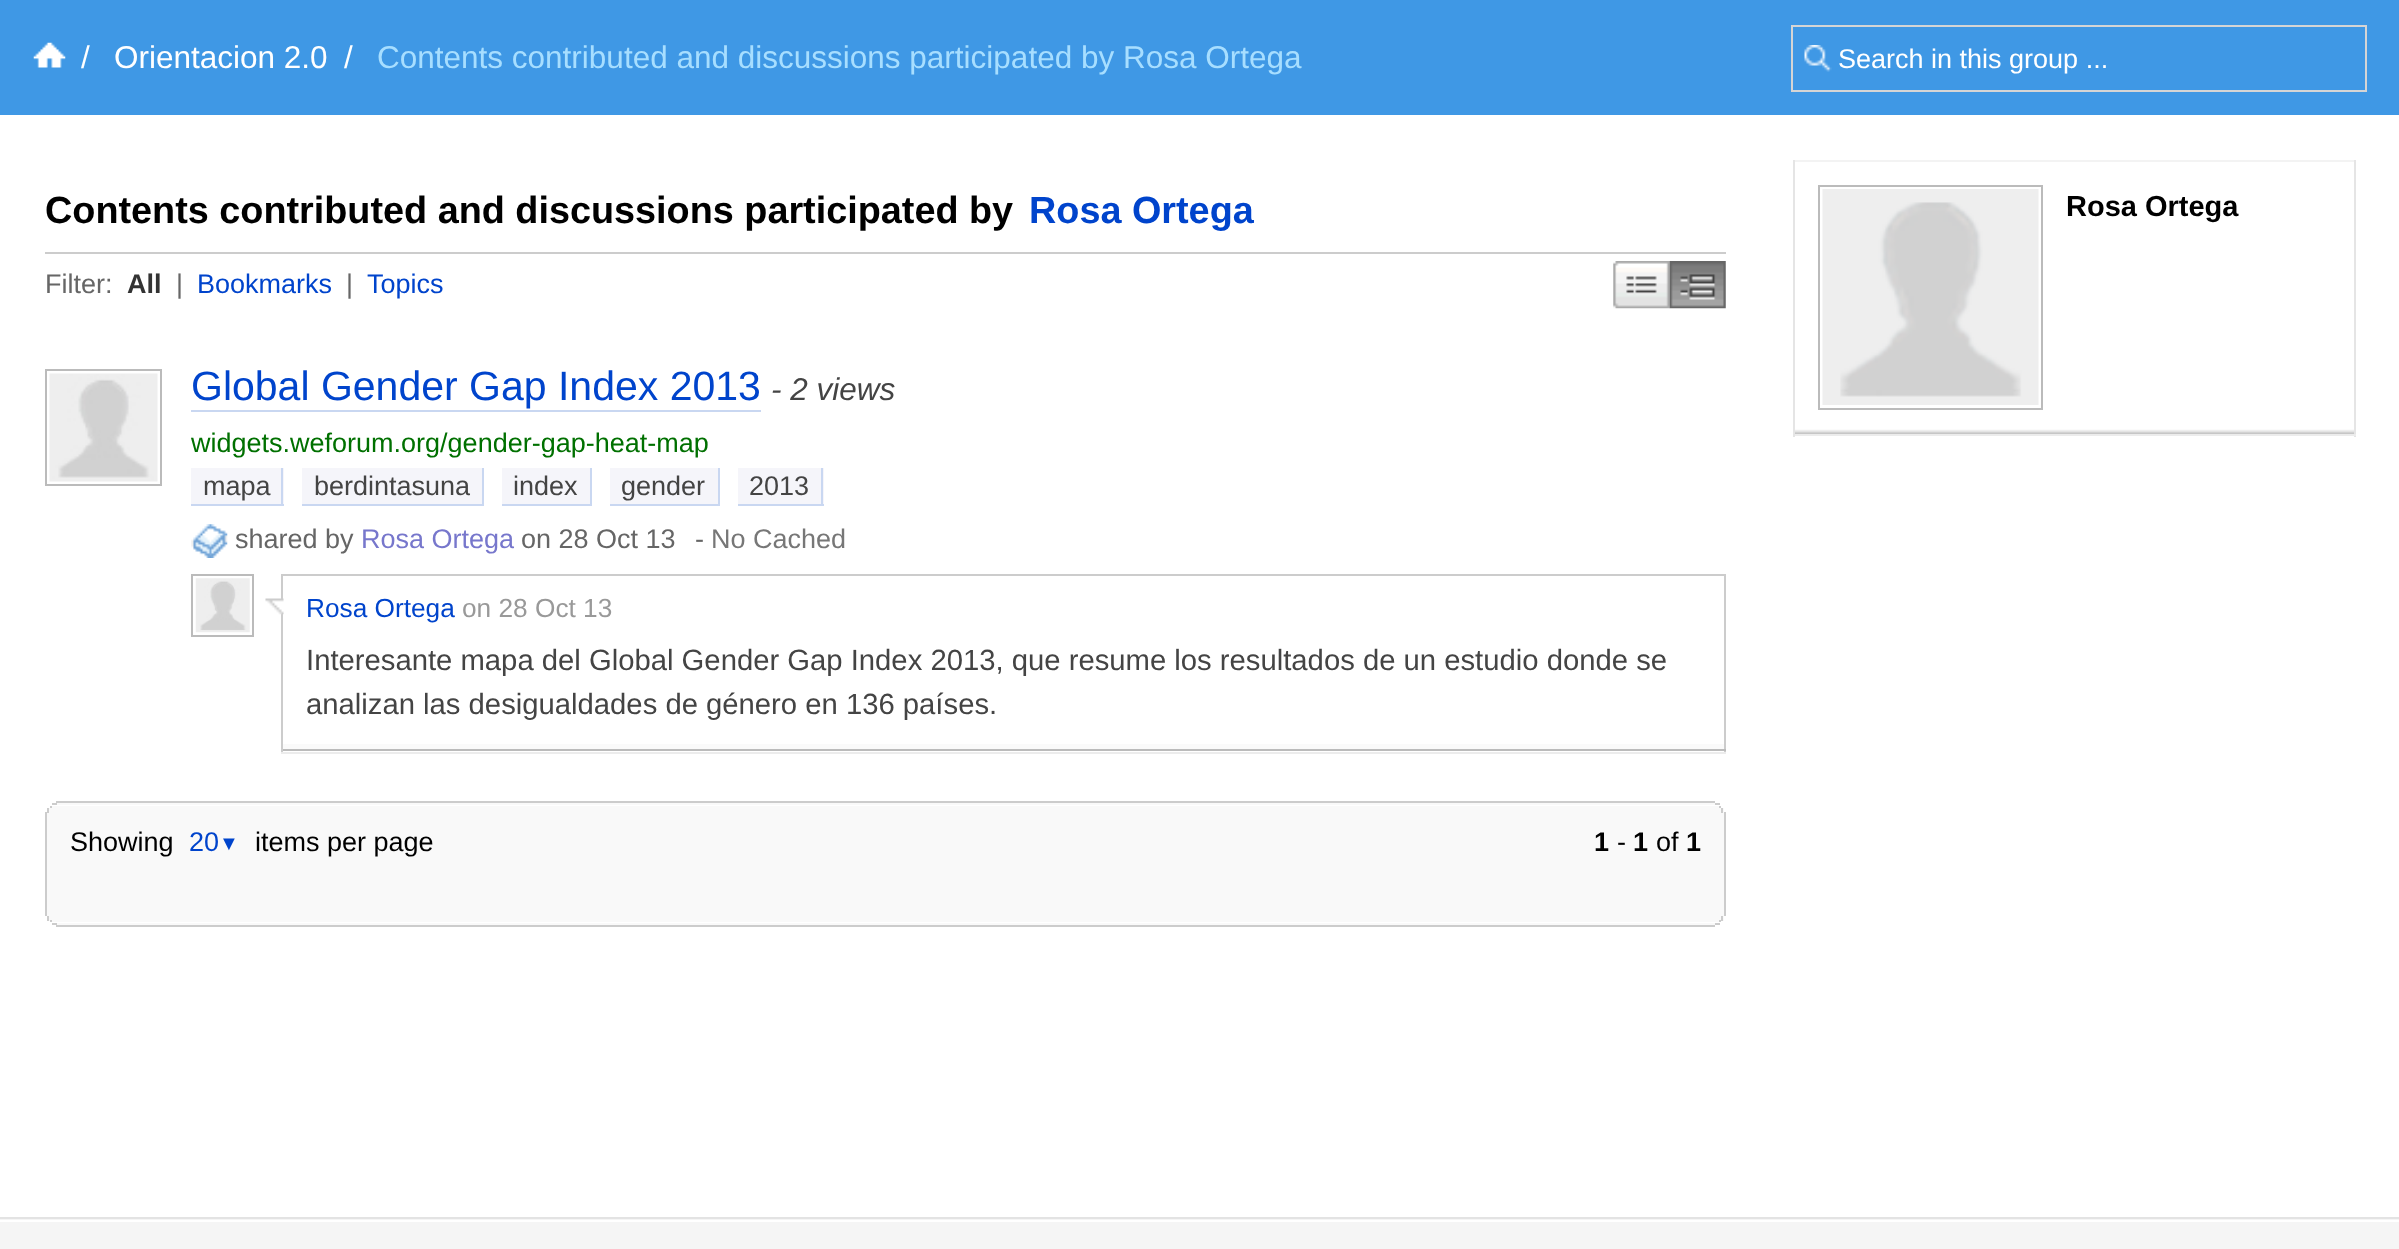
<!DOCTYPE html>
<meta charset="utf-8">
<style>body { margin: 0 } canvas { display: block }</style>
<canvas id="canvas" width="2399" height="1249"></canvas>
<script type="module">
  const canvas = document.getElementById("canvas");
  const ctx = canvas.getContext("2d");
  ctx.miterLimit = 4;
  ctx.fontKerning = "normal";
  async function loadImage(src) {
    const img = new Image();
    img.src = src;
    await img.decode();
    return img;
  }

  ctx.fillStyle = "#ffffff";
  ctx.fillRect(0, 0, 2399, 1249);
  ctx.fillStyle = "#3f98e5";
  ctx.fillRect(0, 0, 2399, 115);
  ctx.drawImage(await loadImage("img1.png"), 33, 42, 33, 26);
  ctx.font = "31.5px Liberation Sans";
  ctx.fillStyle = "#ffffff";
  ctx.fillText("/", 81, 68);
  ctx.fillText("Orientacion 2.0", 114, 68);
  ctx.fillText("/", 344, 68);
  ctx.fillStyle = "#a7deff";
  ctx.fillText("Contents contributed and discussions participated by Rosa Ortega", 377, 68);
  ctx.drawImage(await loadImage("img2.png"), 1804, 45, 28, 27);
  ctx.strokeStyle = "#d5d5d5";
  ctx.lineWidth = 2;
  ctx.strokeRect(1792, 26, 574, 65);
  ctx.font = "27px Liberation Sans";
  ctx.fillStyle = "#ffffff";
  ctx.fillText("Search in this group ...", 1838, 68);
  ctx.font = "bold 37.8px Liberation Sans";
  ctx.fillStyle = "#000000";
  ctx.fillText("Contents contributed and discussions participated by", 45, 223);
  ctx.fillStyle = "#0044cc";
  ctx.fillText("Rosa Ortega", 1029, 223);
  ctx.fillStyle = "#cccccc";
  ctx.fillRect(45, 252, 1681, 2);
  ctx.font = "27px Liberation Sans";
  ctx.fillStyle = "#666666";
  ctx.fillText("Filter:", 45, 293);
  ctx.font = "bold 27px Liberation Sans";
  ctx.fillStyle = "#333333";
  ctx.fillText("All", 127, 293);
  ctx.font = "27px Liberation Sans";
  ctx.fillStyle = "#666666";
  ctx.fillText("|", 176, 293);
  ctx.fillStyle = "#0044cc";
  ctx.fillText("Bookmarks", 197, 293);
  ctx.fillStyle = "#666666";
  ctx.fillText("|", 346, 293);
  ctx.fillStyle = "#0044cc";
  ctx.fillText("Topics", 367, 293);
  ctx.drawImage(await loadImage("img3.png"), 1613, 261, 57, 48);
  ctx.drawImage(await loadImage("img4.png"), 1669, 261, 57, 48);
  ctx.strokeStyle = "#bbbbbb";
  ctx.strokeRect(46, 370, 115, 115);
  ctx.drawImage(await loadImage("img5.png"), 49, 373, 109, 109);
  ctx.font = "41px Liberation Sans";
  ctx.fillText("Global Gender Gap Index 2013", 191, 400);
  ctx.fillStyle = "#c9d7f1";
  ctx.fillRect(191, 410, 570, 2);
  ctx.font = "italic 31.5px Liberation Sans";
  ctx.fillStyle = "#444444";
  ctx.fillText("- 2 views", 771, 400);
  ctx.font = "27px Liberation Sans";
  ctx.fillStyle = "#007000";
  ctx.fillText("widgets.weforum.org/gender-gap-heat-map", 191, 452);
  ctx.fillStyle = "#f5f5fa";
  ctx.fillRect(191, 468, 93, 36);
  ctx.fillStyle = "#444444";
  ctx.fillText("mapa", 203, 495);
  ctx.fillStyle = "#c9d7f1";
  ctx.fillRect(281, 468, 2, 38);
  ctx.fillRect(191, 504, 93, 2);
  ctx.fillStyle = "#f5f5fa";
  ctx.fillRect(302, 468, 180, 36);
  ctx.fillStyle = "#444444";
  ctx.fillText("berdintasuna", 314, 495);
  ctx.fillStyle = "#c9d7f1";
  ctx.fillRect(482, 468, 2, 38);
  ctx.fillRect(302, 504, 182, 2);
  ctx.fillStyle = "#f5f5fa";
  ctx.fillRect(502, 468, 88, 36);
  ctx.fillStyle = "#444444";
  ctx.fillText("index", 513, 495);
  ctx.fillStyle = "#c9d7f1";
  ctx.fillRect(590, 468, 2, 38);
  ctx.fillRect(502, 504, 90, 2);
  ctx.fillStyle = "#f5f5fa";
  ctx.fillRect(610, 468, 108, 36);
  ctx.fillStyle = "#444444";
  ctx.fillText("gender", 621, 495);
  ctx.fillStyle = "#c9d7f1";
  ctx.fillRect(718, 468, 2, 38);
  ctx.fillRect(610, 504, 110, 2);
  ctx.fillStyle = "#f5f5fa";
  ctx.fillRect(738, 468, 86, 36);
  ctx.fillStyle = "#444444";
  ctx.fillText("2013", 749, 495);
  ctx.fillStyle = "#c9d7f1";
  ctx.fillRect(821, 468, 2, 38);
  ctx.fillRect(738, 504, 86, 2);
  ctx.drawImage(await loadImage("img6.png"), 191, 524, 37, 34);
  ctx.fillStyle = "#666666";
  ctx.fillText("shared by", 235, 548);
  ctx.fillStyle = "#7777cc";
  ctx.fillText("Rosa Ortega", 361, 548);
  ctx.fillStyle = "#666666";
  ctx.fillText("on 28 Oct 13", 521, 548);
  ctx.fillText("-", 695, 548);
  ctx.fillStyle = "#777777";
  ctx.fillText("No Cached", 711, 548);
  ctx.strokeRect(192, 575, 61, 61);
  ctx.drawImage(await loadImage("img7.png"), 195, 578, 55, 55);
  ctx.fillStyle = "#cccccc";
  ctx.fillRect(281, 574, 1445, 2);
  ctx.fillRect(1724, 574, 2, 65);
  ctx.fillRect(281, 574, 2, 65);
  ctx.font = "26.25px Liberation Sans";
  ctx.fillStyle = "#0044cc";
  ctx.fillText("Rosa Ortega", 306, 617);
  ctx.fillStyle = "#999999";
  ctx.fillText("on 28 Oct 13", 462, 617);
  ctx.fillStyle = "#ececec";
  ctx.fillRect(281, 752, 1445, 2);
  ctx.drawImage(await loadImage("img8.png"), 265, 598, 19, 17);
  ctx.fillStyle = "#fafafa";
  ctx.fillRect(282, 744, 1443, 5);
  ctx.fillStyle = "#cccccc";
  ctx.fillRect(1724, 639, 2, 113);
  ctx.fillStyle = "#bbbbbb";
  ctx.fillRect(281, 749, 1445, 2);
  ctx.fillStyle = "#cccccc";
  ctx.fillRect(281, 639, 2, 113);
  ctx.font = "29.25px Liberation Sans";
  ctx.fillStyle = "#444444";
  ctx.fillText("Interesante mapa del Global Gender Gap Index 2013, que resume los resultados de un estudio donde se", 306, 670);
  ctx.fillText("analizan las desigualdades de género en 136 países.", 306, 714);
  ctx.fillStyle = "#cccccc";
  ctx.fillRect(56, 801, 1659, 2);
  ctx.fillStyle = "#f9f9f9";
  ctx.fillRect(52, 803, 1667, 2);
  ctx.fillStyle = "#cccccc";
  ctx.fillRect(1715, 803, 5, 2);
  ctx.fillRect(52, 803, 5, 2);
  ctx.fillStyle = "#f9f9f9";
  ctx.fillRect(50, 806, 1671, 2);
  ctx.fillStyle = "#cccccc";
  ctx.fillRect(1719, 806, 2, 2);
  ctx.fillRect(50, 806, 2, 2);
  ctx.fillStyle = "#f9f9f9";
  ctx.fillRect(47, 808, 1677, 113);
  ctx.fillStyle = "#cccccc";
  ctx.fillRect(1721, 808, 2, 5);
  ctx.fillRect(47, 808, 2, 5);
  ctx.fillRect(1724, 812, 2, 104);
  ctx.fillRect(45, 812, 2, 104);
  ctx.font = "27px Liberation Sans";
  ctx.fillStyle = "#000000";
  ctx.fillText("Showing", 70, 851);
  ctx.fillStyle = "#0044cc";
  ctx.fillText("20", 189, 851);
  ctx.font = "bold 20px Liberation Sans";
  ctx.fillText("▼", 219, 850);
  ctx.font = "27px Liberation Sans";
  ctx.fillStyle = "#000000";
  ctx.fillText("items per page", 255, 851);
  ctx.font = "bold 27px Liberation Sans";
  ctx.fillText("1", 1594, 851);
  ctx.font = "27px Liberation Sans";
  ctx.fillText("-", 1617, 851);
  ctx.font = "bold 27px Liberation Sans";
  ctx.fillText("1", 1633, 851);
  ctx.font = "27px Liberation Sans";
  ctx.fillText("of", 1656, 851);
  ctx.font = "bold 27px Liberation Sans";
  ctx.fillText("1", 1686, 851);
  ctx.fillStyle = "#cccccc";
  ctx.fillRect(1721, 916, 2, 5);
  ctx.fillRect(47, 916, 2, 5);
  ctx.fillStyle = "#f9f9f9";
  ctx.fillRect(50, 921, 1671, 1);
  ctx.fillStyle = "#cccccc";
  ctx.fillRect(1719, 920, 2, 2);
  ctx.fillRect(50, 920, 2, 2);
  ctx.fillStyle = "#f9f9f9";
  ctx.fillRect(52, 923, 1667, 2);
  ctx.fillStyle = "#cccccc";
  ctx.fillRect(1715, 923, 5, 2);
  ctx.fillRect(52, 923, 5, 2);
  ctx.fillRect(56, 925, 1659, 2);
  ctx.drawImage(await loadImage("img9.png"), 1795, 429, 559, 5);
  ctx.fillStyle = "#f3f3f3";
  ctx.fillRect(1793, 160, 563, 2);
  ctx.fillStyle = "#e5e5e5";
  ctx.fillRect(2354, 160, 2, 277);
  ctx.fillStyle = "#ececec";
  ctx.fillRect(1793, 434, 563, 2);
  ctx.fillStyle = "#e5e5e5";
  ctx.fillRect(1793, 160, 2, 277);
  ctx.strokeRect(1819, 186, 223, 223);
  ctx.drawImage(await loadImage("img10.png"), 1822, 189, 217, 216);
  ctx.font = "bold 29px Liberation Sans";
  ctx.fillStyle = "#000000";
  ctx.fillText("Rosa Ortega", 2066, 216);
  ctx.fillStyle = "#f5f5f5";
  ctx.fillRect(0, 1219, 2399, 30);
  ctx.fillStyle = "#e3e3e3";
  ctx.fillRect(0, 1217, 2399, 2);
  ctx.fillStyle = "#ffffff";
  ctx.fillRect(0, 1220, 2399, 2);
</script>
